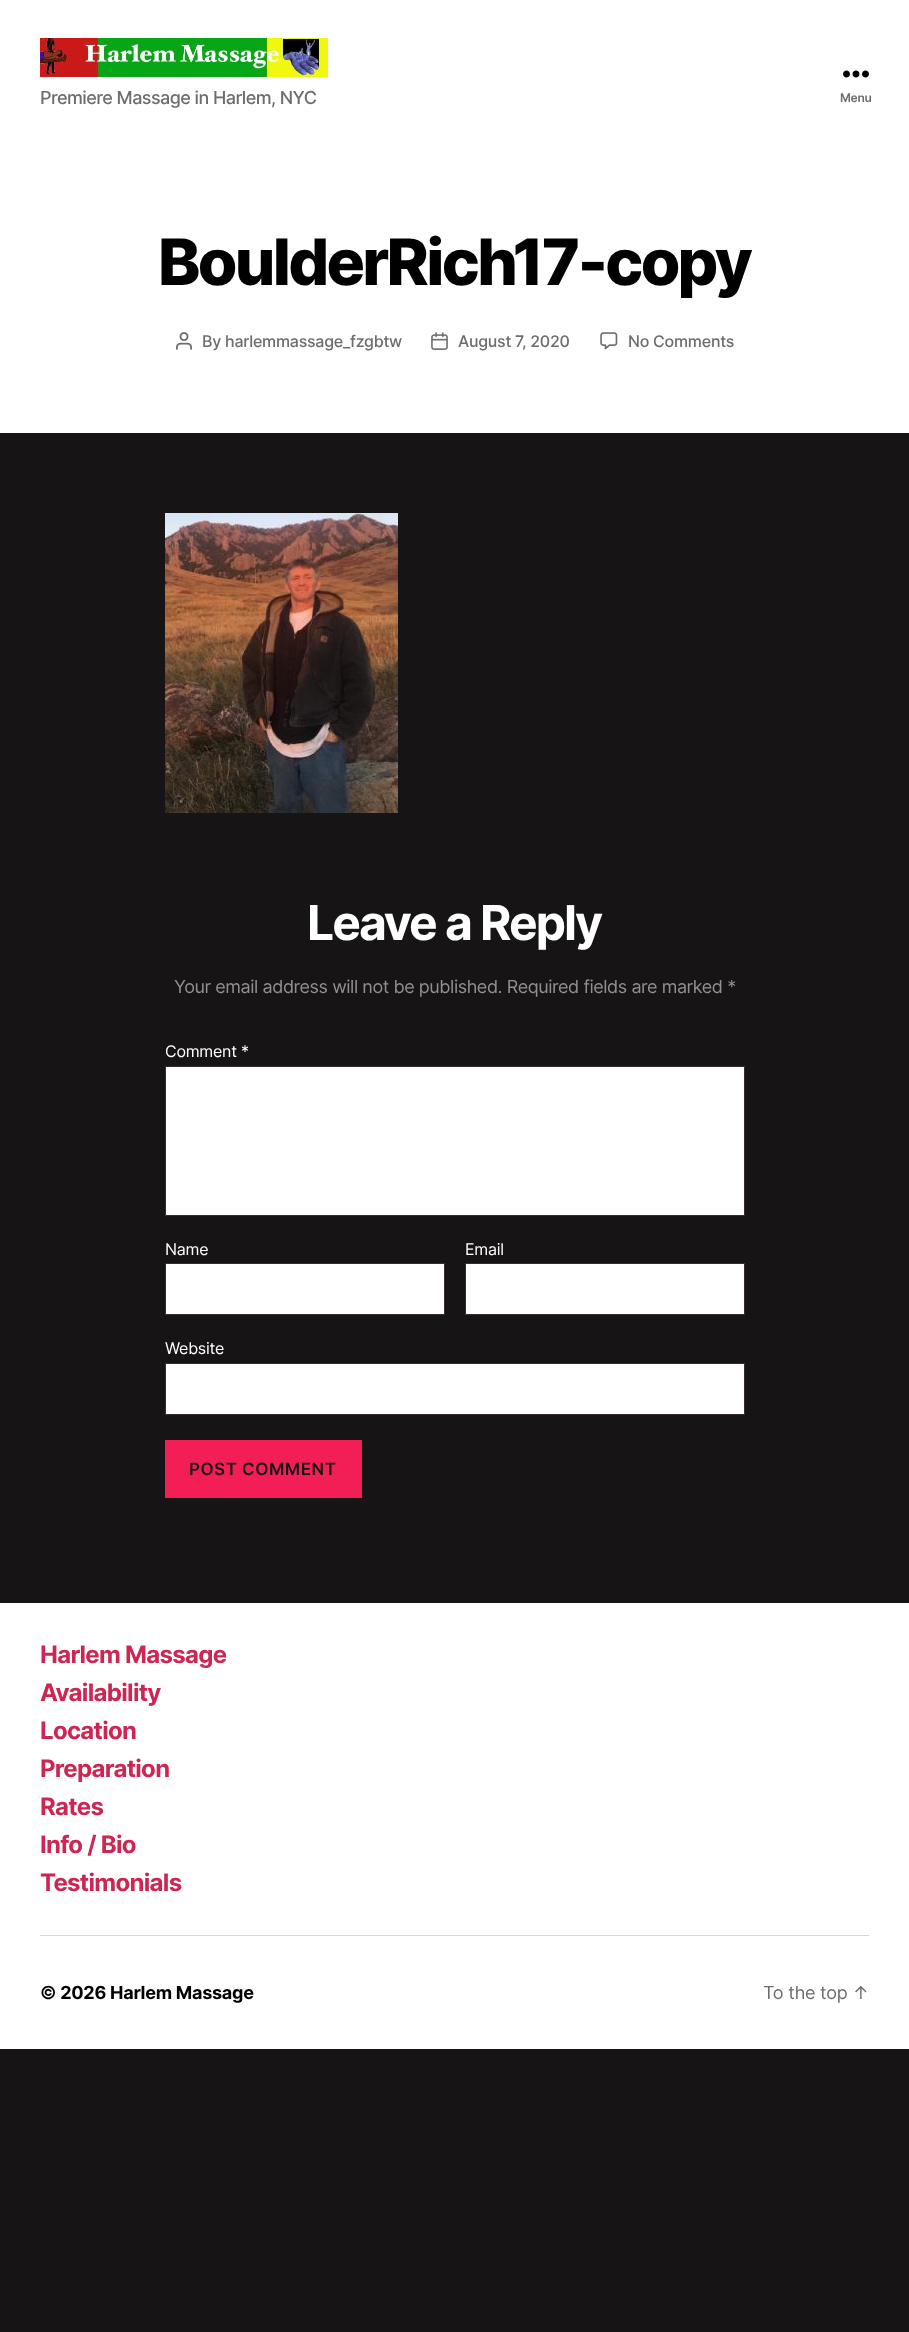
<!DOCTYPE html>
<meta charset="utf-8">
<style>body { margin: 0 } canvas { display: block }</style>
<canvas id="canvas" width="909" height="2332"></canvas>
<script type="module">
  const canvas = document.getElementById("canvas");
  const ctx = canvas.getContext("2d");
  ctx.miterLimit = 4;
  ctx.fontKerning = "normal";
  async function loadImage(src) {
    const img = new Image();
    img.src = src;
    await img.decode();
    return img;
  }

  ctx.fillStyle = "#161415";
  ctx.fillRect(0, 0, 909, 2332);
  ctx.fillStyle = "#ffffff";
  ctx.fillRect(0, 0, 909, 433);
  ctx.drawImage(await loadImage("img1.png"), 40, 38, 288, 39);
  ctx.letterSpacing = "-0.55px";
  ctx.font = "500 18px Inter";
  ctx.fillStyle = "#6d6d6d";
  ctx.fillText("Premiere Massage in Harlem, NYC", 40, 104);
  ctx.drawImage(await loadImage("img2.png"), 843, 70, 26, 8);
  ctx.letterSpacing = "-0.25px";
  ctx.font = "600 12px Inter";
  ctx.fillText("Menu", 840, 102);
  ctx.letterSpacing = "-2.7px";
  ctx.font = "800 64px Inter";
  ctx.fillStyle = "#000000";
  ctx.fillText("BoulderRich17-copy", 158, 285);
  ctx.drawImage(await loadImage("img3.png"), 176, 332, 16, 18);
  ctx.letterSpacing = "-0.25px";
  ctx.font = "500 16px Inter";
  ctx.fillStyle = "#6d6d6d";
  ctx.fillText("By harlemmassage_fzgbtw", 202, 347);
  ctx.drawImage(await loadImage("img4.png"), 431, 332, 17, 18);
  ctx.fillText("August 7, 2020", 458, 347);
  ctx.drawImage(await loadImage("img5.png"), 600, 332, 18, 18);
  ctx.fillText("No Comments", 628, 347);
  ctx.drawImage(await loadImage("img6.png"), 165, 513, 233, 300);
  ctx.letterSpacing = "-2px";
  ctx.font = "bold 48px Inter";
  ctx.fillStyle = "#ffffff";
  ctx.fillText("Leave a Reply", 307, 940);
  ctx.letterSpacing = "-0.45px";
  ctx.font = "18px Inter";
  ctx.fillStyle = "#948e8f";
  ctx.fillText("Your email address will not be published. Required fields are marked *", 174, 993);
  ctx.letterSpacing = "-0.25px";
  ctx.font = "16px Inter";
  ctx.fillStyle = "#ffffff";
  ctx.fillText("Comment *", 165, 1057);
  ctx.beginPath();
  ctx.rect(165.5, 1066.5, 579, 149);
  ctx.fill();
  ctx.strokeStyle = "#392c2d";
  ctx.stroke();
  ctx.fillText("Name", 165, 1255);
  ctx.beginPath();
  ctx.rect(165.5, 1263.5, 279, 51);
  ctx.fill();
  ctx.stroke();
  ctx.fillText("Email", 465, 1255);
  ctx.beginPath();
  ctx.rect(465.5, 1263.5, 279, 51);
  ctx.fill();
  ctx.stroke();
  ctx.fillText("Website", 165, 1354);
  ctx.beginPath();
  ctx.rect(165.5, 1363.5, 579, 51);
  ctx.fill();
  ctx.stroke();
  ctx.fillStyle = "#f41e57";
  ctx.fillRect(165, 1440, 197, 58);
  ctx.letterSpacing = "0.5px";
  ctx.font = "600 17px Inter";
  ctx.fillStyle = "#161415";
  ctx.fillText("POST COMMENT", 189, 1475);
  ctx.fillStyle = "#ffffff";
  ctx.fillRect(0, 1603, 909, 446);
  ctx.fillStyle = "#dcd7ca";
  ctx.fillRect(40, 1935, 829, 1);
  ctx.letterSpacing = "-0.7px";
  ctx.font = "bold 24px Inter";
  ctx.fillStyle = "#cd2653";
  ctx.fillText("Harlem Massage", 40, 1663);
  ctx.fillText("Availability", 40, 1701);
  ctx.fillText("Location", 40, 1739);
  ctx.fillText("Preparation", 40, 1777);
  ctx.fillText("Rates", 40, 1815);
  ctx.fillText("Info / Bio", 40, 1853);
  ctx.fillText("Testimonials", 40, 1891);
  ctx.letterSpacing = "-0.25px";
  ctx.font = "bold 18px Inter";
  ctx.fillStyle = "#000000";
  ctx.fillText("© 2026 Harlem Massage", 40, 1999);
  ctx.font = "18px Inter";
  ctx.fillStyle = "#6d6d6d";
  ctx.fillText("To the top ↑", 763, 1999);
</script>
